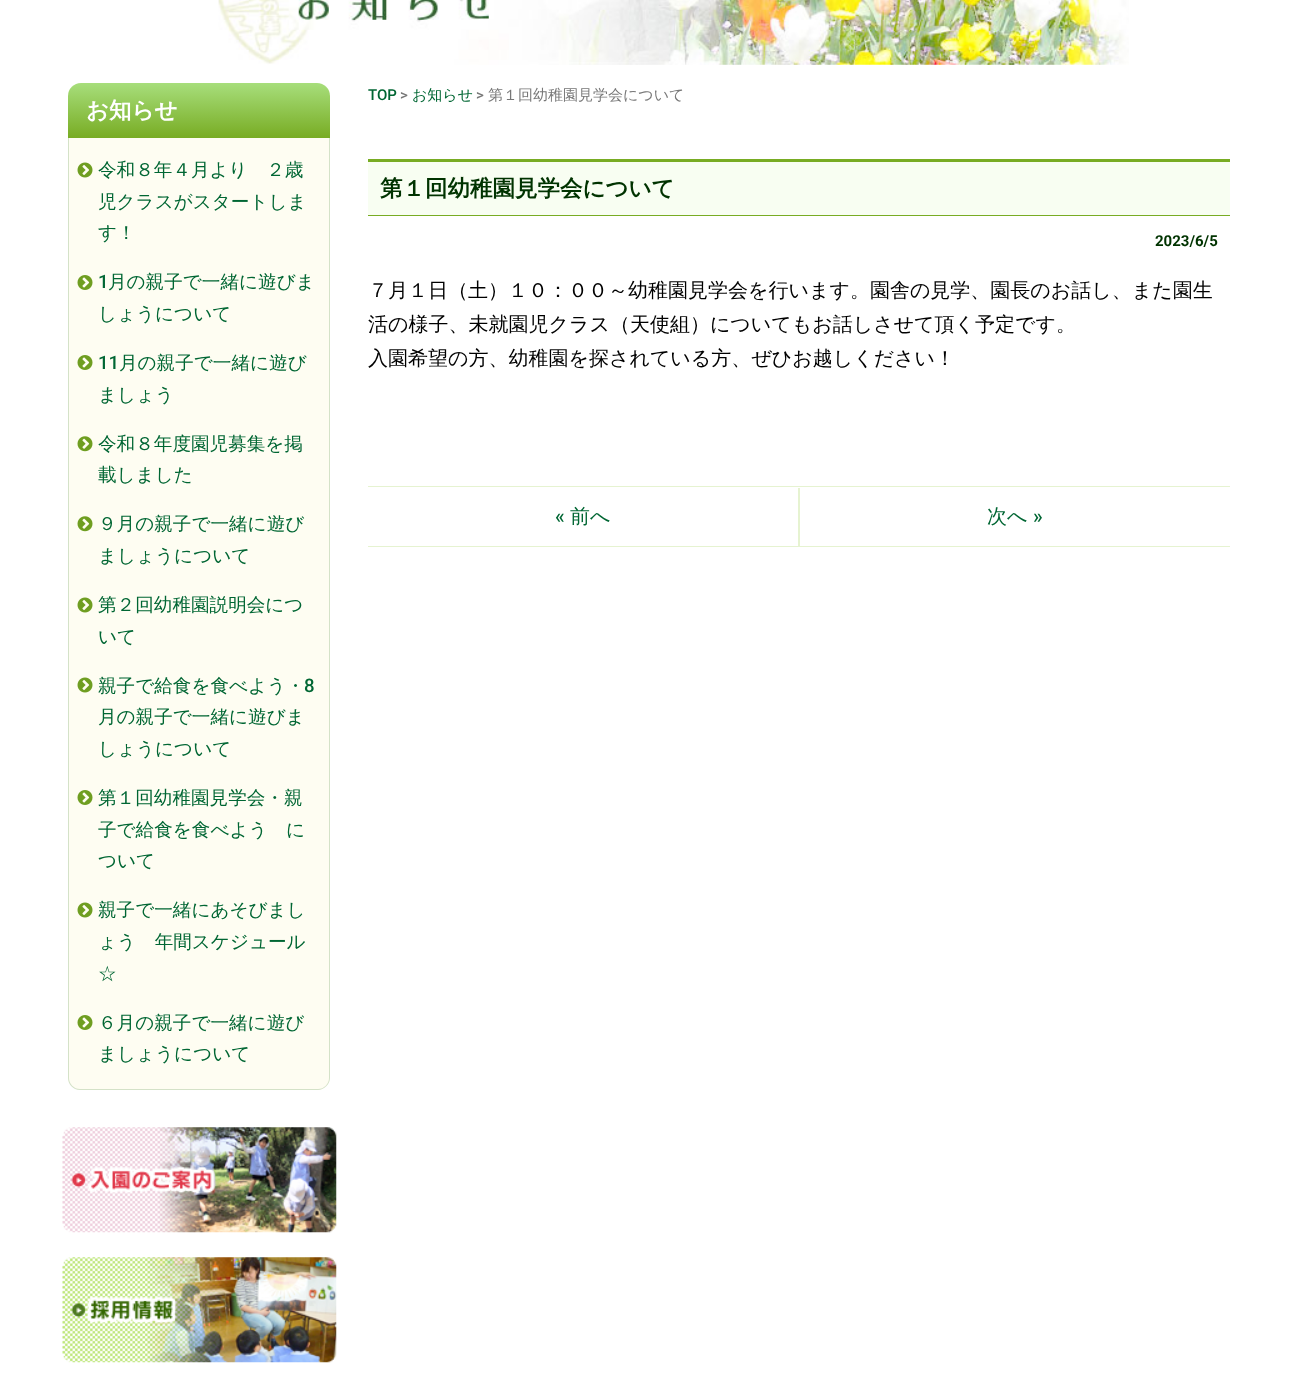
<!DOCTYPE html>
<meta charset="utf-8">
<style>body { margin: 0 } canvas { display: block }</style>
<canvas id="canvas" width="1297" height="1386"></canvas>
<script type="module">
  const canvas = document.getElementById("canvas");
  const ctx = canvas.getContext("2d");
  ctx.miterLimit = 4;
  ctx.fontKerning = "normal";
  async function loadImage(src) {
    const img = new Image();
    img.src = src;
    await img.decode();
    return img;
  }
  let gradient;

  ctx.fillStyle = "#ffffff";
  ctx.fillRect(0, 0, 1297, 1386);
  ctx.drawImage(await loadImage("img1.png"), 218, 0, 911, 65);
  gradient = ctx.createLinearGradient(199, 82, 199, 138);
  gradient.addColorStop(0, "#a8df7d");
  gradient.addColorStop(1, "#78ac23");
  ctx.fillStyle = gradient;
  ctx.beginPath();
  ctx.roundRect(68, 83, 262, 55, [13, 13, 0, 0]);
  ctx.fill();
  ctx.font = "bold 22.5px WenQuanYi Zen Hei";
  ctx.fillStyle = "#ffffff";
  ctx.fillText("お知らせ", 86, 118);
  ctx.fillStyle = "#fefdf2";
  ctx.beginPath();
  ctx.roundRect(68, 138, 262, 952, [0, 0, 13, 13]);
  ctx.fill();
  ctx.fillStyle = "#d4e2c8";
  ctx.beginPath();
  ctx.moveTo(68, 138);
  ctx.lineTo(330, 138);
  ctx.lineTo(330, 1078);
  ctx.bezierCurveTo(330, 1084, 324, 1090, 318, 1090);
  ctx.lineTo(80, 1090);
  ctx.bezierCurveTo(73, 1090, 68, 1084, 68, 1078);
  ctx.closePath();
  ctx.moveTo(69, 138);
  ctx.lineTo(329, 138);
  ctx.lineTo(329, 1078);
  ctx.bezierCurveTo(329, 1084, 324, 1089, 318, 1089);
  ctx.lineTo(80, 1089);
  ctx.bezierCurveTo(74, 1089, 69, 1084, 69, 1078);
  ctx.closePath();
  ctx.fill("evenodd");
  ctx.drawImage(await loadImage("img2.png"), 77, 162, 16, 16);
  ctx.font = "500 18.6px WenQuanYi Zen Hei";
  ctx.fillStyle = "#006633";
  ctx.fillText("令和８年４月より　２歳", 98, 176);
  ctx.fillText("児クラスがスタートしま", 98, 208);
  ctx.fillText("す！", 98, 239);
  ctx.drawImage(await loadImage("img3.png"), 77, 275, 16, 15);
  ctx.font = "500 18.6px Roboto";
  ctx.fillText("1", 98, 288);
  ctx.font = "500 18.6px WenQuanYi Zen Hei";
  ctx.fillText("月の親子で一緒に遊びま", 108, 288);
  ctx.fillText("しょうについて", 98, 320);
  ctx.drawImage(await loadImage("img3.png"), 77, 355, 16, 15);
  ctx.font = "500 18.6px Roboto";
  ctx.fillText("11", 98, 369);
  ctx.font = "500 18.6px WenQuanYi Zen Hei";
  ctx.fillText("月の親子で一緒に遊び", 119, 369);
  ctx.fillText("ましょう", 98, 401);
  ctx.drawImage(await loadImage("img4.png"), 77, 436, 16, 16);
  ctx.fillText("令和８年度園児募集を掲", 98, 450);
  ctx.fillText("載しました", 98, 481);
  ctx.drawImage(await loadImage("img4.png"), 77, 516, 16, 16);
  ctx.fillText("９月の親子で一緒に遊び", 98, 530);
  ctx.fillText("ましょうについて", 98, 562);
  ctx.drawImage(await loadImage("img2.png"), 77, 597, 16, 16);
  ctx.fillText("第２回幼稚園説明会につ", 98, 611);
  ctx.fillText("いて", 98, 643);
  ctx.drawImage(await loadImage("img2.png"), 77, 677, 16, 16);
  ctx.fillText("親子で給食を食べよう・", 98, 692);
  ctx.font = "500 18.6px Roboto";
  ctx.fillText("8", 304, 692);
  ctx.font = "500 18.6px WenQuanYi Zen Hei";
  ctx.fillText("月の親子で一緒に遊びま", 98, 723);
  ctx.fillText("しょうについて", 98, 755);
  ctx.drawImage(await loadImage("img3.png"), 77, 790, 16, 15);
  ctx.fillText("第１回幼稚園見学会・親", 98, 804);
  ctx.fillText("子で給食を食べよう　に", 98, 836);
  ctx.fillText("ついて", 98, 867);
  ctx.drawImage(await loadImage("img2.png"), 77, 902, 16, 16);
  ctx.fillText("親子で一緒にあそびまし", 98, 916);
  ctx.fillText("ょう　年間スケジュール", 98, 948);
  ctx.fillText("☆", 98, 980);
  ctx.drawImage(await loadImage("img3.png"), 77, 1015, 16, 15);
  ctx.fillText("６月の親子で一緒に遊び", 98, 1029);
  ctx.fillText("ましょうについて", 98, 1060);
  ctx.drawImage(await loadImage("img5.png"), 62, 1127, 275, 106);
  ctx.drawImage(await loadImage("img6.png"), 62, 1257, 275, 106);
  ctx.font = "500 15px Roboto";
  ctx.fillText("TOP", 368, 100);
  ctx.fillStyle = "#777777";
  ctx.fillText(">", 400, 100);
  ctx.font = "500 15px WenQuanYi Zen Hei";
  ctx.fillStyle = "#006633";
  ctx.fillText("お知らせ", 412, 100);
  ctx.font = "500 15px Roboto";
  ctx.fillStyle = "#777777";
  ctx.fillText(">", 476, 100);
  ctx.font = "500 15px WenQuanYi Zen Hei";
  ctx.fillText("第１回幼稚園見学会について", 488, 100);
  ctx.fillStyle = "#f8fef2";
  ctx.fillRect(368, 162, 862, 53);
  ctx.fillStyle = "#78ac23";
  ctx.fillRect(368, 159, 862, 3);
  ctx.fillRect(368, 215, 862, 1);
  ctx.font = "bold 22.5px WenQuanYi Zen Hei";
  ctx.fillStyle = "#003300";
  ctx.fillText("第１回幼稚園見学会について", 380, 196);
  ctx.font = "bold 15px Roboto";
  ctx.fillText("2023/6/5", 1155, 246);
  ctx.font = "500 20px WenQuanYi Zen Hei";
  ctx.fillStyle = "#000000";
  ctx.fillText("７月１日（土）１０：００～幼稚園見学会を行います。園舎の見学、園長のお話し、また園生", 368, 297);
  ctx.fillText("活の様子、未就園児クラス（天使組）についてもお話しさせて頂く予定です。", 368, 331);
  ctx.fillText("入園希望の方、幼稚園を探されている方、ぜひお越しください！", 368, 365);
  ctx.fillStyle = "#e6f3d1";
  ctx.fillRect(368, 486, 862, 1);
  ctx.fillRect(368, 546, 862, 1);
  ctx.fillRect(798, 488, 2, 58);
  ctx.font = "500 20px Roboto";
  ctx.fillStyle = "#006633";
  ctx.fillText("«", 555, 523);
  ctx.font = "500 20px WenQuanYi Zen Hei";
  ctx.fillText("前へ", 570, 523);
  ctx.fillText("次へ", 987, 523);
  ctx.font = "500 20px Roboto";
  ctx.fillText("»", 1033, 523);
</script>
